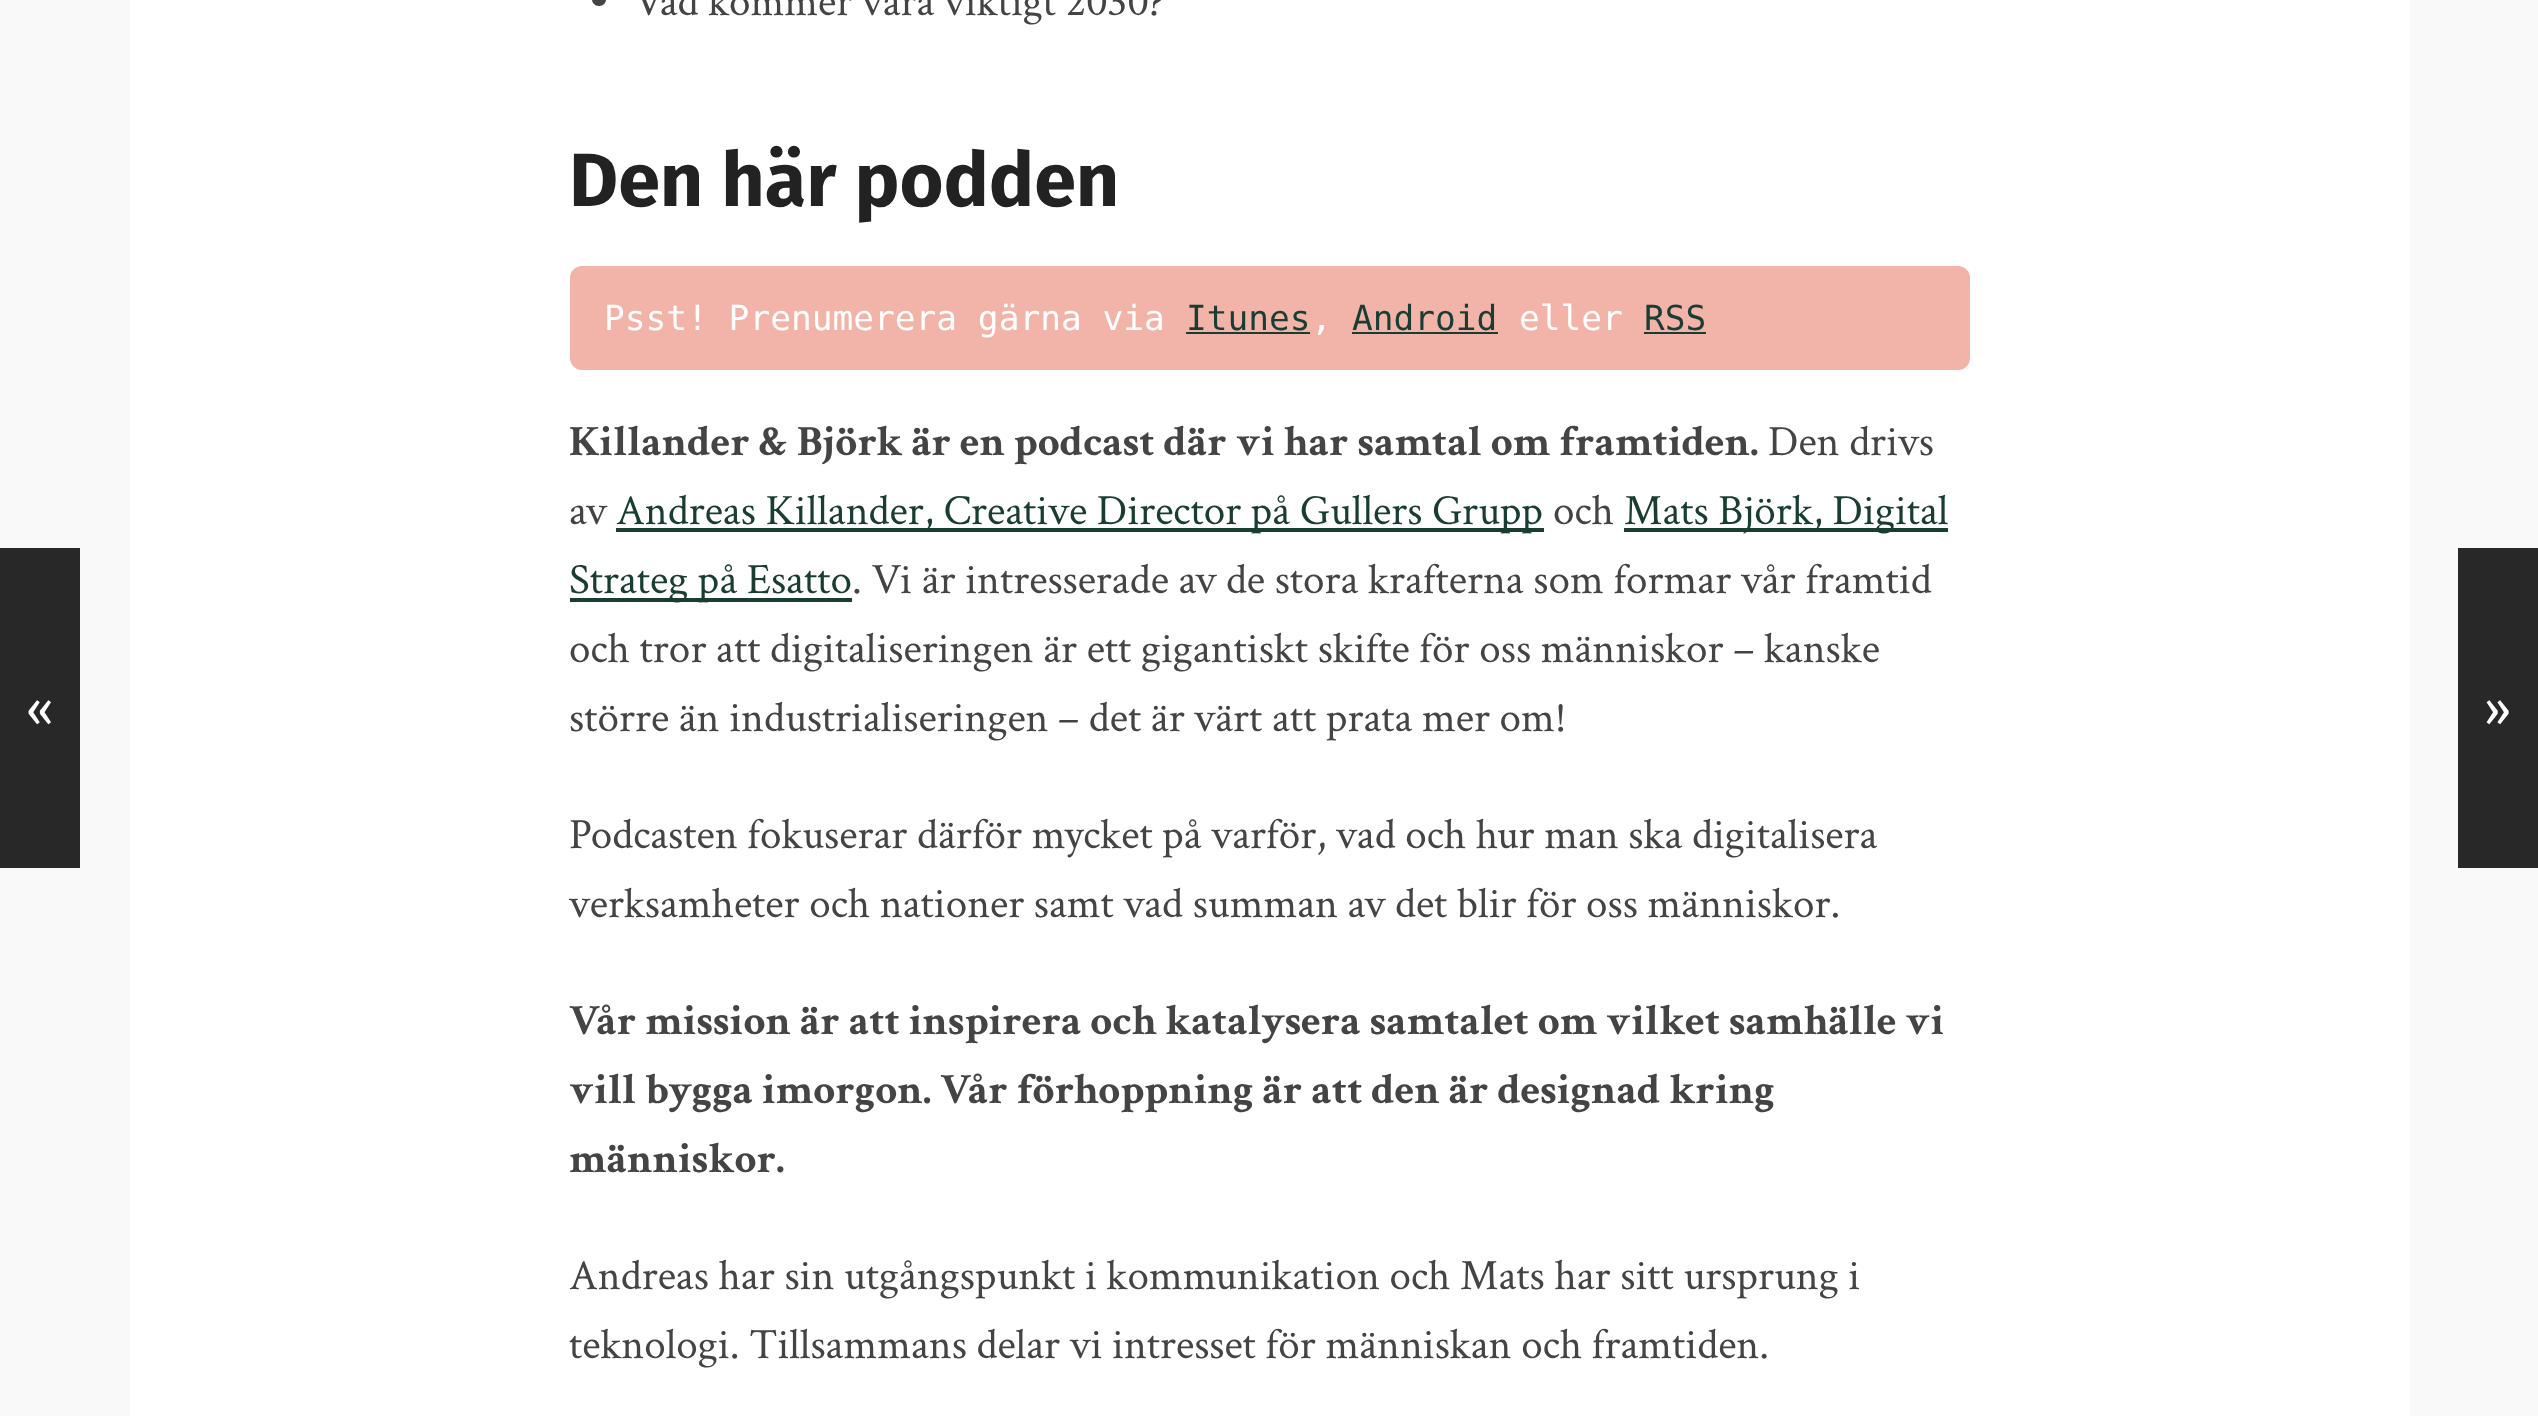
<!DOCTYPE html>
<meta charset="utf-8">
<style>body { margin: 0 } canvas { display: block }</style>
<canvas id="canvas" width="2538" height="1416"></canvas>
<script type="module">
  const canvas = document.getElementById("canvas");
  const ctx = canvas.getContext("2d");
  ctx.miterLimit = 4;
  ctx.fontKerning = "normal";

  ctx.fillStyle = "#f9f9f9";
  ctx.fillRect(0, 0, 2538, 1416);
  ctx.fillStyle = "#ffffff";
  ctx.fillRect(130, 0, 2280, 1416);
  ctx.fillStyle = "#444444";
  ctx.beginPath();
  ctx.roundRect(592, -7, 14, 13, 7);
  ctx.fill();
  ctx.font = "43.2px Crimson Text";
  ctx.fillText("Vad kommer vara viktigt 2030?", 634, 15);
  ctx.font = "bold 75.5px Fira Sans";
  ctx.fillStyle = "#222222";
  ctx.fillText("Den här podden", 569, 206);
  ctx.fillStyle = "#f2b3a8";
  ctx.beginPath();
  ctx.roundRect(570, 266, 1400, 104, 12);
  ctx.fill();
  ctx.font = "34.5px DejaVu Sans Mono";
  ctx.fillStyle = "#ffffff";
  ctx.fillText("Psst! Prenumerera gärna via", 604, 330);
  ctx.fillStyle = "#193d33";
  ctx.fillText("Itunes", 1186, 330);
  ctx.fillRect(1186, 332, 124, 2);
  ctx.fillStyle = "#ffffff";
  ctx.fillText(",", 1311, 330);
  ctx.fillStyle = "#193d33";
  ctx.fillText("Android", 1352, 330);
  ctx.fillRect(1352, 332, 146, 2);
  ctx.fillStyle = "#ffffff";
  ctx.fillText("eller", 1519, 330);
  ctx.fillStyle = "#193d33";
  ctx.fillText("RSS", 1644, 330);
  ctx.fillRect(1644, 332, 62, 2);
  ctx.font = "bold 43.2px Crimson Text";
  ctx.fillStyle = "#444444";
  ctx.fillText("Killander & Björk är en podcast där vi har samtal om framtiden.", 569, 455);
  ctx.font = "43.2px Crimson Text";
  ctx.fillText("Den drivs", 1768, 455);
  ctx.fillText("av", 569, 524);
  ctx.fillStyle = "#193d33";
  ctx.fillRect(616, 528, 928, 4);
  ctx.fillText("Andreas Killander, Creative Director på Gullers Grupp", 616, 524);
  ctx.fillStyle = "#444444";
  ctx.fillText("och", 1553, 524);
  ctx.fillStyle = "#193d33";
  ctx.fillRect(1624, 528, 324, 4);
  ctx.fillText("Mats Björk, Digital", 1624, 524);
  ctx.fillRect(570, 598, 282, 4);
  ctx.fillText("Strateg på Esatto", 569, 593);
  ctx.fillStyle = "#444444";
  ctx.fillText(". Vi är intresserade av de stora krafterna som formar vår framtid", 852, 593);
  ctx.fillText("och tror att digitaliseringen är ett gigantiskt skifte för oss människor – kanske", 569, 662);
  ctx.fillText("större än industrialiseringen – det är värt att prata mer om!", 569, 731);
  ctx.fillText("Podcasten fokuserar därför mycket på varför, vad och hur man ska digitalisera", 569, 848);
  ctx.fillText("verksamheter och nationer samt vad summan av det blir för oss människor.", 569, 917);
  ctx.font = "bold 43.2px Crimson Text";
  ctx.fillText("Vår mission är att inspirera och katalysera samtalet om vilket samhälle vi", 569, 1034);
  ctx.fillText("vill bygga imorgon. Vår förhoppning är att den är designad kring", 569, 1103);
  ctx.fillText("människor.", 569, 1172);
  ctx.font = "43.2px Crimson Text";
  ctx.fillText("Andreas har sin utgångspunkt i kommunikation och Mats har sitt ursprung i", 569, 1289);
  ctx.fillText("teknologi. Tillsammans delar vi intresset för människan och framtiden.", 569, 1358);
  ctx.fillStyle = "#282828";
  ctx.fillRect(0, 548, 80, 320);
  ctx.font = "48px Fira Sans";
  ctx.fillStyle = "#ffffff";
  ctx.fillText("«", 26, 726);
  ctx.fillStyle = "#282828";
  ctx.fillRect(2458, 548, 80, 320);
  ctx.fillStyle = "#ffffff";
  ctx.fillText("»", 2484, 726);
</script>
